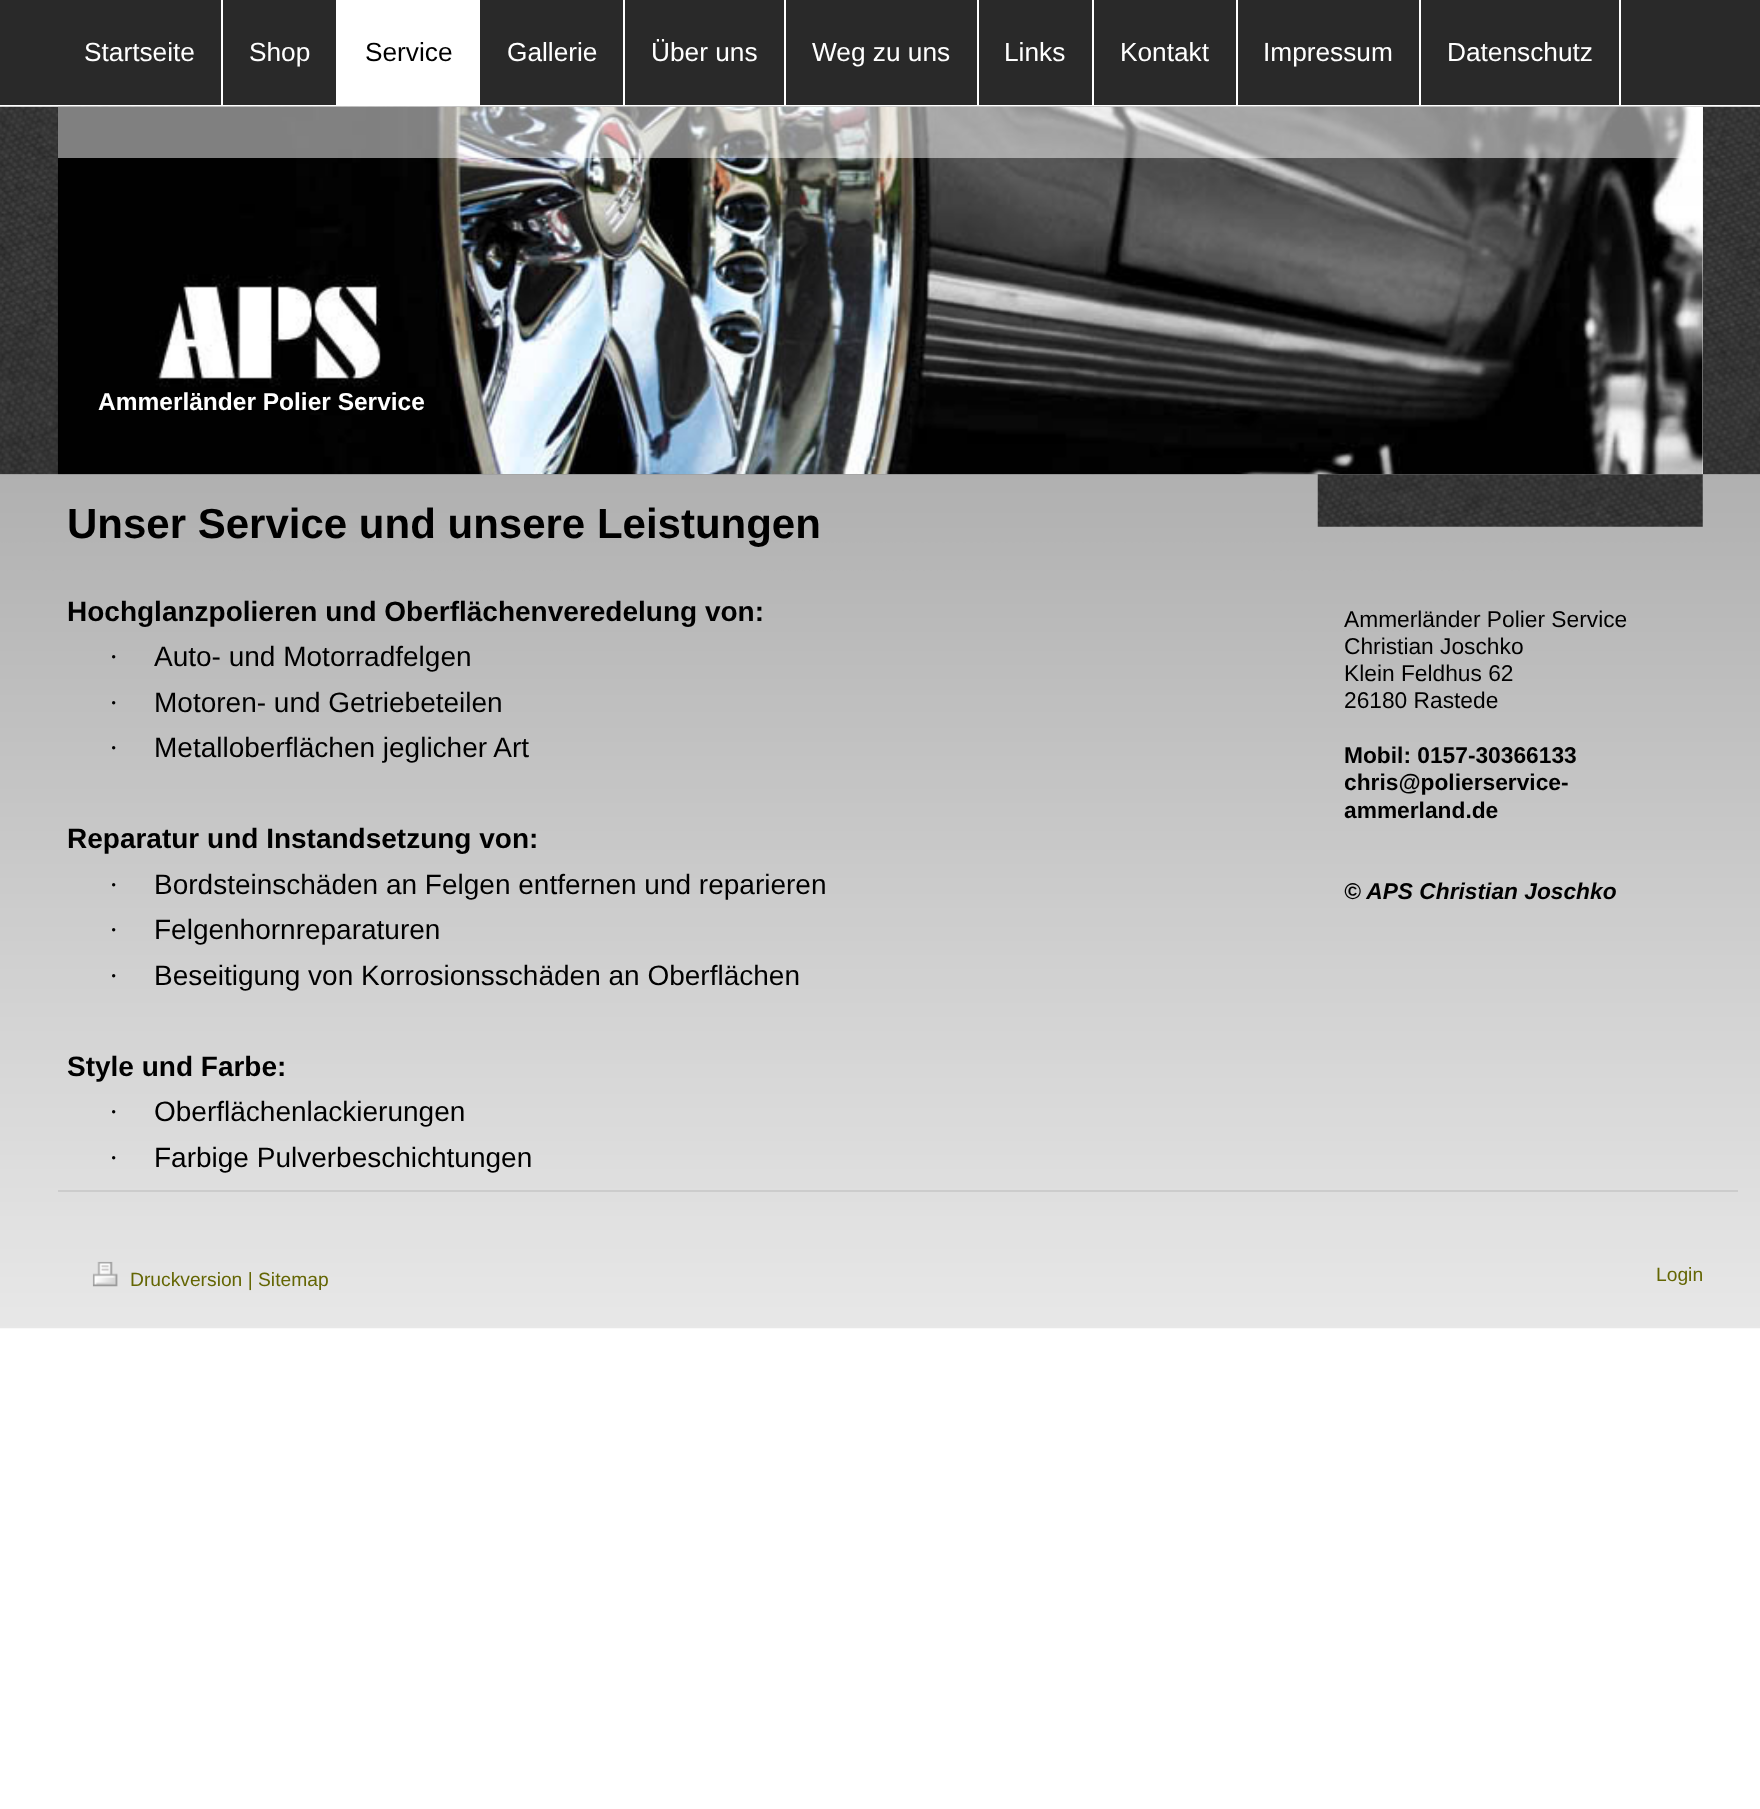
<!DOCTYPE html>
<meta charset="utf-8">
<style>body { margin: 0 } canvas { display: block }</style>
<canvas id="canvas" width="1760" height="1809"></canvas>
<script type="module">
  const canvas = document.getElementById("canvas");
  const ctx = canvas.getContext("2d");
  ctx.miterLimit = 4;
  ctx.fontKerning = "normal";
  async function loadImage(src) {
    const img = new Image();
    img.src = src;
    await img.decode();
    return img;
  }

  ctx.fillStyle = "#ffffff";
  ctx.fillRect(0, 0, 1760, 1809);
  ctx.fillStyle = "#292929";
  ctx.fillRect(0, 0, 1760, 105);
  ctx.fillStyle = "#ffffff";
  ctx.fillRect(221, 0, 2, 105);
  ctx.font = "26.25px Liberation Sans";
  ctx.fillText("Startseite", 84, 61);
  ctx.fillRect(336, 0, 2, 105);
  ctx.fillText("Shop", 249, 61);
  ctx.fillRect(338, 0, 142, 105);
  ctx.fillStyle = "#000000";
  ctx.fillText("Service", 365, 61);
  ctx.fillStyle = "#ffffff";
  ctx.fillRect(623, 0, 2, 105);
  ctx.fillText("Gallerie", 507, 61);
  ctx.fillRect(784, 0, 2, 105);
  ctx.fillText("Über uns", 651, 61);
  ctx.fillRect(977, 0, 2, 105);
  ctx.fillText("Weg zu uns", 812, 61);
  ctx.fillRect(1092, 0, 2, 105);
  ctx.fillText("Links", 1004, 61);
  ctx.fillRect(1236, 0, 2, 105);
  ctx.fillText("Kontakt", 1120, 61);
  ctx.fillRect(1419, 0, 2, 105);
  ctx.fillText("Impressum", 1263, 61);
  ctx.fillRect(1619, 0, 2, 105);
  ctx.fillText("Datenschutz", 1447, 61);
  ctx.drawImage(await loadImage("img3.png"), 0, 474, 1760, 855);
  ctx.drawImage(await loadImage("img4.png"), 1317, 474, 386, 53);
  ctx.drawImage(await loadImage("img1.png"), 0, 106, 1760, 369);
  ctx.fillStyle = "#eeeeee";
  ctx.fillRect(1702, 107, 1, 367);
  ctx.drawImage(await loadImage("img2.png"), 57, 106, 1646, 369);
  ctx.fillStyle = "rgba(255, 255, 255, 0.5)";
  ctx.fillRect(58, 107, 1645, 51);
  ctx.font = "bold 24.5px Liberation Sans";
  ctx.fillStyle = "#ffffff";
  ctx.fillText("Ammerländer Polier Service", 98, 410);
  ctx.font = "bold 42px Liberation Sans";
  ctx.fillStyle = "#000000";
  ctx.fillText("Unser Service und unsere Leistungen", 67, 538);
  ctx.font = "bold 28px Liberation Sans";
  ctx.fillText("Hochglanzpolieren und Oberflächenveredelung von:", 67, 621);
  ctx.font = "28px Liberation Serif";
  ctx.fillText("·", 109, 666);
  ctx.font = "28px Liberation Sans";
  ctx.fillText("Auto- und Motorradfelgen", 154, 666);
  ctx.font = "28px Liberation Serif";
  ctx.fillText("·", 109, 712);
  ctx.font = "28px Liberation Sans";
  ctx.fillText("Motoren- und Getriebeteilen", 154, 712);
  ctx.font = "28px Liberation Serif";
  ctx.fillText("·", 109, 757);
  ctx.font = "28px Liberation Sans";
  ctx.fillText("Metalloberflächen jeglicher Art", 154, 757);
  ctx.font = "bold 28px Liberation Sans";
  ctx.fillText("Reparatur und Instandsetzung von:", 67, 848);
  ctx.font = "28px Liberation Serif";
  ctx.fillText("·", 109, 894);
  ctx.font = "28px Liberation Sans";
  ctx.fillText("Bordsteinschäden an Felgen entfernen und reparieren", 154, 894);
  ctx.font = "28px Liberation Serif";
  ctx.fillText("·", 109, 939);
  ctx.font = "28px Liberation Sans";
  ctx.fillText("Felgenhornreparaturen", 154, 939);
  ctx.font = "28px Liberation Serif";
  ctx.fillText("·", 109, 985);
  ctx.font = "28px Liberation Sans";
  ctx.fillText("Beseitigung von Korrosionsschäden an Oberflächen", 154, 985);
  ctx.font = "bold 28px Liberation Sans";
  ctx.fillText("Style und Farbe:", 67, 1076);
  ctx.font = "28px Liberation Serif";
  ctx.fillText("·", 109, 1121);
  ctx.font = "28px Liberation Sans";
  ctx.fillText("Oberflächenlackierungen", 154, 1121);
  ctx.font = "28px Liberation Serif";
  ctx.fillText("·", 109, 1167);
  ctx.font = "28px Liberation Sans";
  ctx.fillText("Farbige Pulverbeschichtungen", 154, 1167);
  ctx.font = "22.75px Liberation Sans";
  ctx.fillText("Ammerländer Polier Service", 1344, 627);
  ctx.fillText("Christian Joschko", 1344, 654);
  ctx.fillText("Klein Feldhus 62", 1344, 681);
  ctx.fillText("26180 Rastede", 1344, 708);
  ctx.font = "bold 22.75px Liberation Sans";
  ctx.fillText("Mobil: 0157-30366133", 1344, 763);
  ctx.fillText("chris@polierservice-", 1344, 790);
  ctx.fillText("ammerland.de", 1344, 818);
  ctx.font = "italic bold 22.75px Liberation Sans";
  ctx.fillText("© APS Christian Joschko", 1344, 899);
  ctx.fillStyle = "#cccccc";
  ctx.fillRect(58, 1190, 1680, 2);
  ctx.drawImage(await loadImage("img5.png"), 92, 1261, 26, 26);
  ctx.font = "19.25px Liberation Sans";
  ctx.fillStyle = "#646604";
  ctx.fillText("Druckversion | Sitemap", 130, 1286);
  ctx.fillText("Login", 1656, 1281);
</script>
